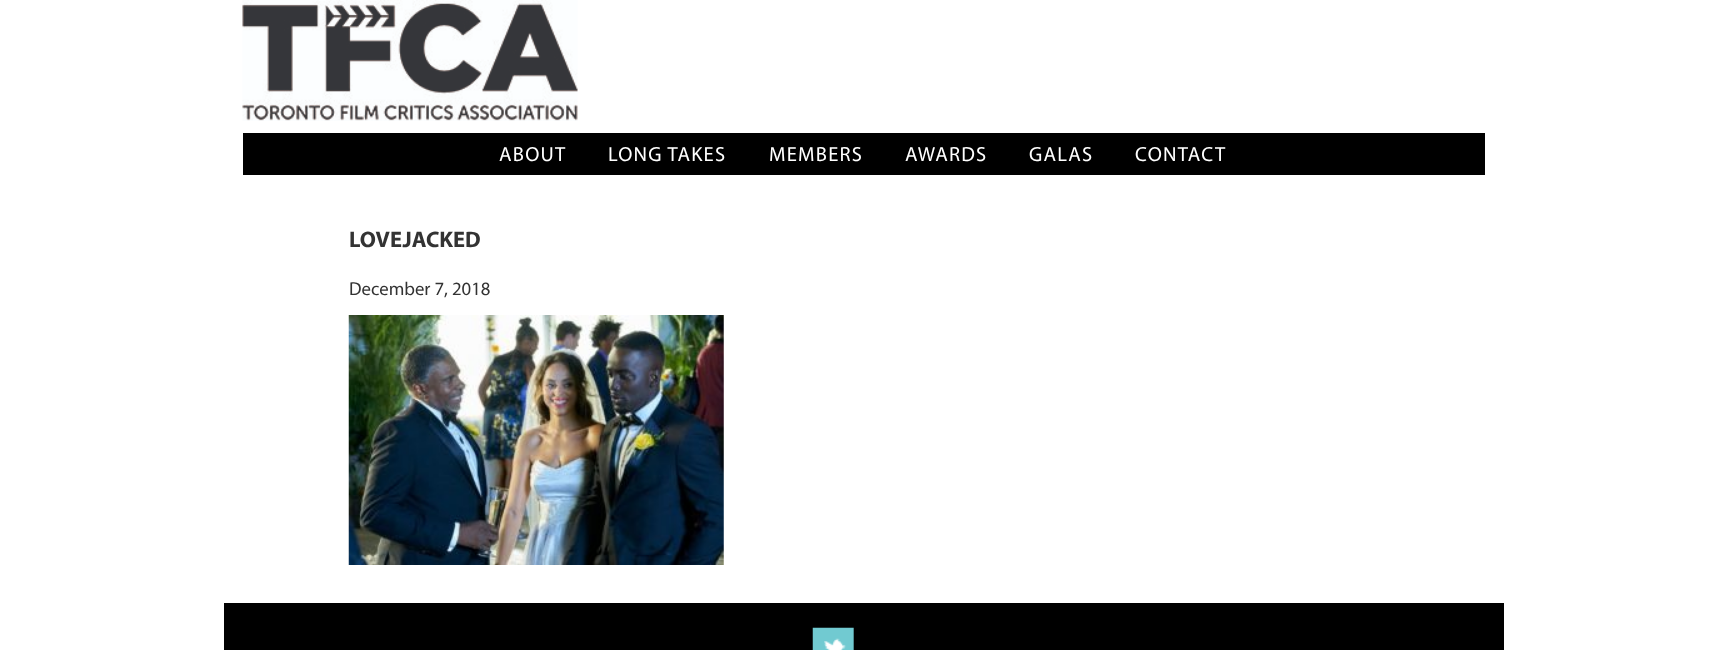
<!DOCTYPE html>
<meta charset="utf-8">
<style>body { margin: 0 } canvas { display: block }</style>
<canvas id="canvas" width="1726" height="650"></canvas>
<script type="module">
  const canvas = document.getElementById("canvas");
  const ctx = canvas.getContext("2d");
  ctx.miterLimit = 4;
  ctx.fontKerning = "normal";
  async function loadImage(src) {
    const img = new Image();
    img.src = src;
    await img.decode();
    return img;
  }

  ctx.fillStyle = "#ffffff";
  ctx.fillRect(0, 0, 1726, 650);
  ctx.drawImage(await loadImage("img1.png"), 242, 0, 336, 121);
  ctx.fillStyle = "#000000";
  ctx.fillRect(243, 133, 1242, 42);
  ctx.letterSpacing = "1.25px";
  ctx.font = "20.5px Myriad";
  ctx.fillStyle = "#ffffff";
  ctx.fillText("ABOUT", 499, 161);
  ctx.fillText("LONG TAKES", 608, 161);
  ctx.fillText("MEMBERS", 769, 161);
  ctx.fillText("AWARDS", 905, 161);
  ctx.fillText("GALAS", 1029, 161);
  ctx.fillText("CONTACT", 1135, 161);
  ctx.letterSpacing = "0px";
  ctx.font = "bold 22.5px Myriad";
  ctx.fillStyle = "#333333";
  ctx.fillText("LOVEJACKED", 349, 247);
  ctx.font = "18.75px Myriad";
  ctx.fillText("December 7, 2018", 349, 295);
  ctx.drawImage(await loadImage("img2.png"), 348, 315, 376, 250);
  ctx.fillStyle = "#000000";
  ctx.fillRect(224, 603, 1280, 47);
  ctx.drawImage(await loadImage("img3.png"), 812, 627, 42, 23);
</script>
